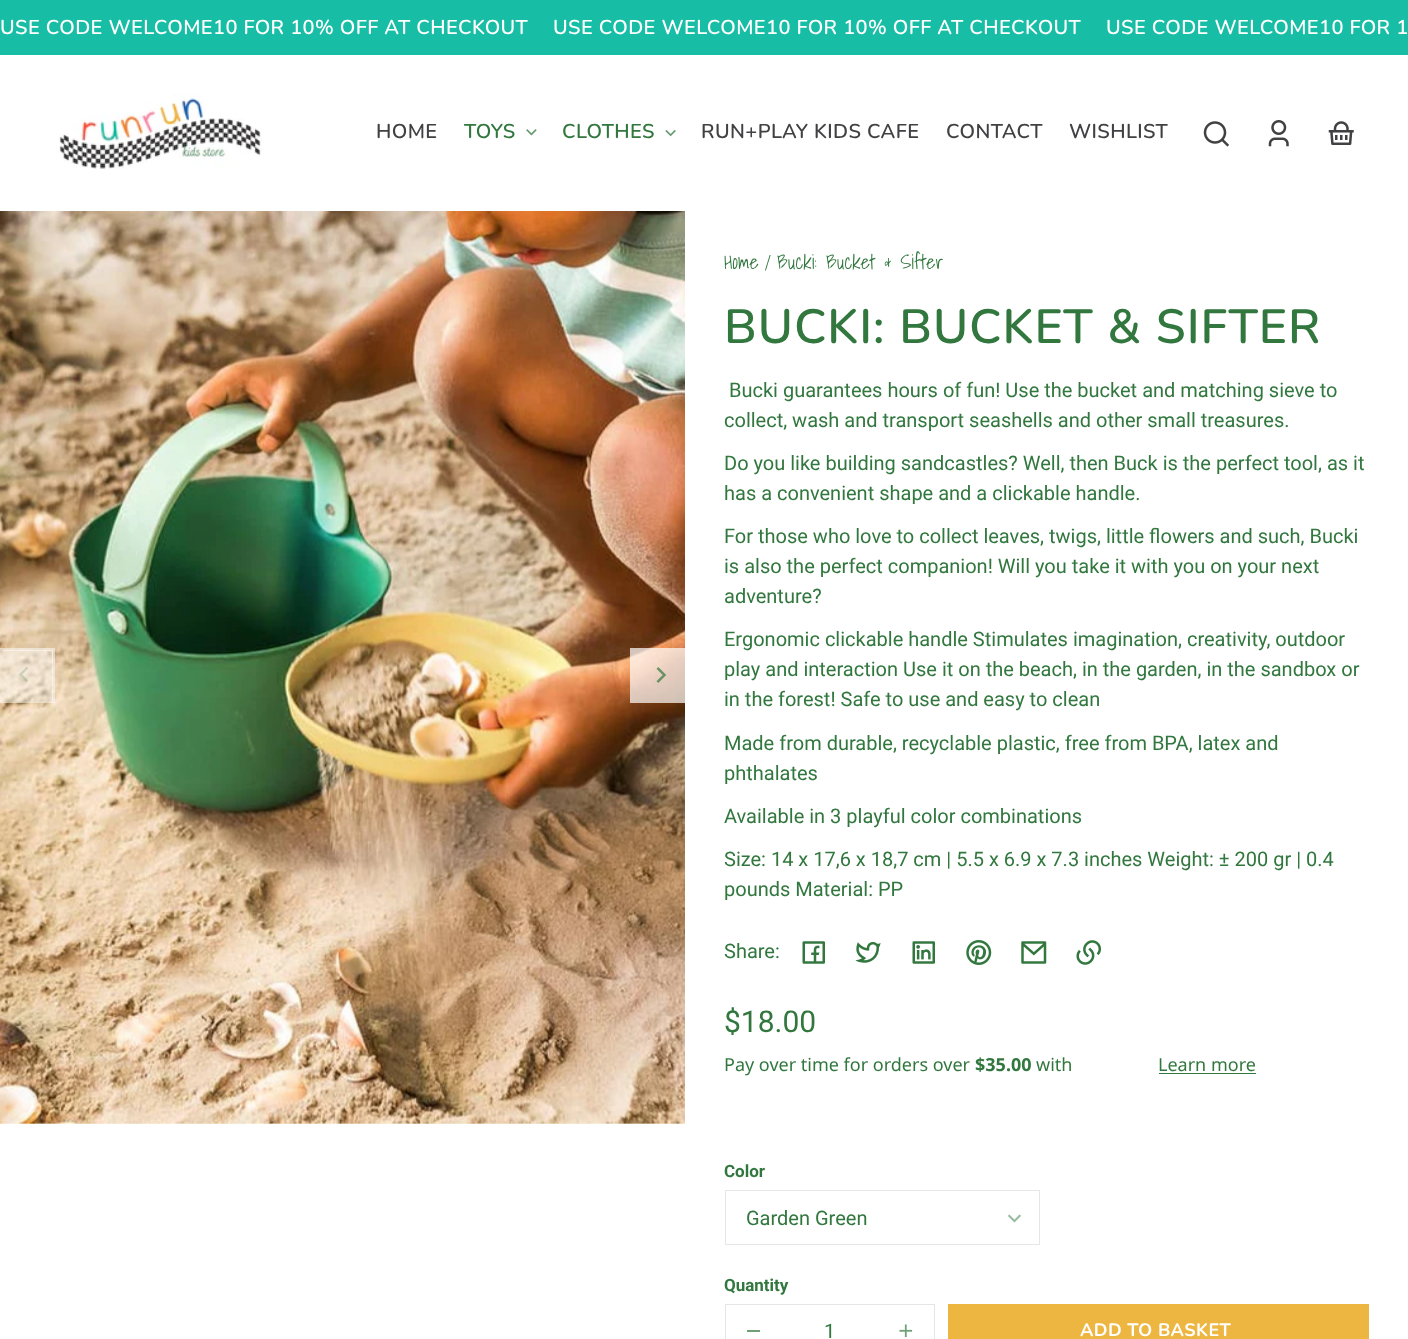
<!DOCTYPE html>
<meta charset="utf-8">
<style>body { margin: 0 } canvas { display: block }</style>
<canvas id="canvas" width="1408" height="1339"></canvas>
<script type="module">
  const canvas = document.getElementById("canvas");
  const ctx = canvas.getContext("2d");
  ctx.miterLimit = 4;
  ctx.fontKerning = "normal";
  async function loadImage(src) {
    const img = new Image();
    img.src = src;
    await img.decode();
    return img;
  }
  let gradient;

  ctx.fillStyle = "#ffffff";
  ctx.fillRect(0, 0, 1408, 1339);
  gradient = ctx.createRadialGradient(704, 715.08, 0, 704, 715.08, 996);
  gradient.addColorStop(1, "#17bda5");
  gradient.addColorStop(1, "#dd2739");
  ctx.fillStyle = gradient;
  ctx.beginPath();
  ctx.rect(0, 0, 1408, 55);
  ctx.save();
  ctx.clip();
  ctx.scale(1, 39 / 996);
  ctx.fillRect(0, 0, 1408, 34196);
  ctx.restore();
  ctx.letterSpacing = "0.4px";
  ctx.font = "600 20px Nunito";
  ctx.fillStyle = "#ffffff";
  ctx.fillText("USE CODE WELCOME10 FOR 10% OFF AT CHECKOUT", 0, 34);
  ctx.fillText("USE CODE WELCOME10 FOR 10% OFF AT CHECKOUT", 553, 34);
  ctx.fillText("USE CODE WELCOME10 FOR 1", 1106, 34);
  ctx.drawImage(await loadImage("img1.png"), 59, 94, 203, 75);
  ctx.fillStyle = "#414042";
  ctx.fillText("HOME", 376, 138);
  ctx.fillStyle = "#31773e";
  ctx.fillText("TOYS", 464, 138);
  ctx.drawImage(await loadImage("img2.png"), 526, 129, 11, 7);
  ctx.fillText("CLOTHES", 562, 138);
  ctx.drawImage(await loadImage("img3.png"), 665, 130, 11, 7);
  ctx.fillStyle = "#414042";
  ctx.fillText("RUN+PLAY KIDS CAFE", 701, 138);
  ctx.fillText("CONTACT", 946, 138);
  ctx.fillText("WISHLIST", 1069, 138);
  ctx.drawImage(await loadImage("img4.png"), 1203, 121, 26, 26);
  ctx.drawImage(await loadImage("img5.png"), 1268, 120, 21, 27);
  ctx.drawImage(await loadImage("img6.png"), 1328, 121, 26, 24);
  ctx.fillStyle = "#fcf3dd";
  ctx.fillRect(0, 1123, 685, 1);
  ctx.drawImage(await loadImage("img7.png"), 0, 211, 685, 913);
  ctx.fillStyle = "rgba(255, 255, 255, 0.5)";
  ctx.fillRect(3, 650, 50, 50);
  ctx.strokeStyle = "rgba(255, 255, 255, 0.5)";
  ctx.lineWidth = 3;
  ctx.strokeRect(1.5, 649.5, 52, 52);
  ctx.drawImage(await loadImage("img8.png"), 19, 666, 10, 16);
  ctx.fillStyle = "rgba(255, 255, 255, 0.7)";
  ctx.fillRect(630, 648, 55, 55);
  ctx.drawImage(await loadImage("img9.png"), 656, 667, 11, 16);
  ctx.letterSpacing = "0px";
  ctx.font = "20px Shadows Into Light";
  ctx.fillStyle = "#31773e";
  ctx.fillText("Home", 724, 269);
  ctx.fillText("/", 765, 269);
  ctx.fillText("Bucki: Bucket & Sifter", 777, 269);
  ctx.letterSpacing = "1px";
  ctx.font = "600 48px Nunito";
  ctx.fillText("BUCKI: BUCKET & SIFTER", 724, 343);
  ctx.letterSpacing = "0px";
  ctx.font = "20px Roboto";
  ctx.fillText("Bucki guarantees hours of fun! Use the bucket and matching sieve to", 729, 397);
  ctx.fillText("collect, wash and transport seashells and other small treasures.", 724, 427);
  ctx.fillText("Do you like building sandcastles? Well, then Buck is the perfect tool, as it", 724, 470);
  ctx.fillText("has a convenient shape and a clickable handle.", 724, 500);
  ctx.fillText("For those who love to collect leaves, twigs, little flowers and such, Bucki", 724, 543);
  ctx.fillText("is also the perfect companion! Will you take it with you on your next", 724, 573);
  ctx.fillText("adventure?", 724, 603);
  ctx.fillText("Ergonomic clickable handle Stimulates imagination, creativity, outdoor", 724, 646);
  ctx.fillText("play and interaction Use it on the beach, in the garden, in the sandbox or", 724, 676);
  ctx.fillText("in the forest! Safe to use and easy to clean", 724, 706);
  ctx.fillText("Made from durable, recyclable plastic, free from BPA, latex and", 724, 750);
  ctx.fillText("phthalates", 724, 780);
  ctx.fillText("Available in 3 playful color combinations", 724, 823);
  ctx.fillText("Size: 14 x 17,6 x 18,7 cm | 5.5 x 6.9 x 7.3 inches Weight: ± 200 gr | 0.4", 724, 866);
  ctx.fillText("pounds Material: PP", 724, 896);
  ctx.fillText("Share:", 724, 958);
  ctx.drawImage(await loadImage("img10.png"), 802, 941, 23, 23);
  ctx.drawImage(await loadImage("img11.png"), 855, 942, 26, 21);
  ctx.drawImage(await loadImage("img12.png"), 912, 941, 23, 23);
  ctx.drawImage(await loadImage("img13.png"), 966, 940, 26, 25);
  ctx.drawImage(await loadImage("img14.png"), 1021, 941, 26, 23);
  ctx.drawImage(await loadImage("img15.png"), 1076, 940, 25, 25);
  ctx.font = "30px Roboto";
  ctx.fillText("$18.00", 724, 1032);
  ctx.font = "18px Noto Sans";
  ctx.fillText("Pay over time for orders over", 724, 1071);
  ctx.font = "bold 18px Noto Sans";
  ctx.fillText("$35.00", 975, 1071);
  ctx.font = "18px Noto Sans";
  ctx.fillText("with", 1036, 1071);
  ctx.fillText("Learn more", 1158, 1071);
  ctx.fillRect(1159, 1073, 97, 1);
  ctx.font = "bold 17px Roboto";
  ctx.fillText("Color", 724, 1177);
  ctx.drawImage(await loadImage("img16.png"), 1008, 1214, 13, 9);
  ctx.strokeStyle = "#e6e6e6";
  ctx.lineWidth = 1;
  ctx.strokeRect(725.5, 1190.5, 314, 54);
  ctx.font = "20px Roboto";
  ctx.fillText("Garden Green", 746, 1225);
  ctx.font = "bold 17px Roboto";
  ctx.fillText("Quantity", 724, 1291);
  ctx.strokeRect(725.5, 1304.5, 209, 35);
  ctx.fillStyle = "#6fa078";
  ctx.fillRect(747, 1330, 13, 2);
  ctx.font = "20px Roboto";
  ctx.fillStyle = "#31773e";
  ctx.fillText("1", 824, 1338);
  ctx.drawImage(await loadImage("img17.png"), 899, 1324, 14, 14);
  ctx.fillStyle = "#edb640";
  ctx.fillRect(948, 1304, 421, 35);
  ctx.letterSpacing = "0.4px";
  ctx.font = "bold 18px Nunito";
  ctx.fillStyle = "#ffffff";
  ctx.fillText("ADD TO BASKET", 1080, 1336);
</script>
